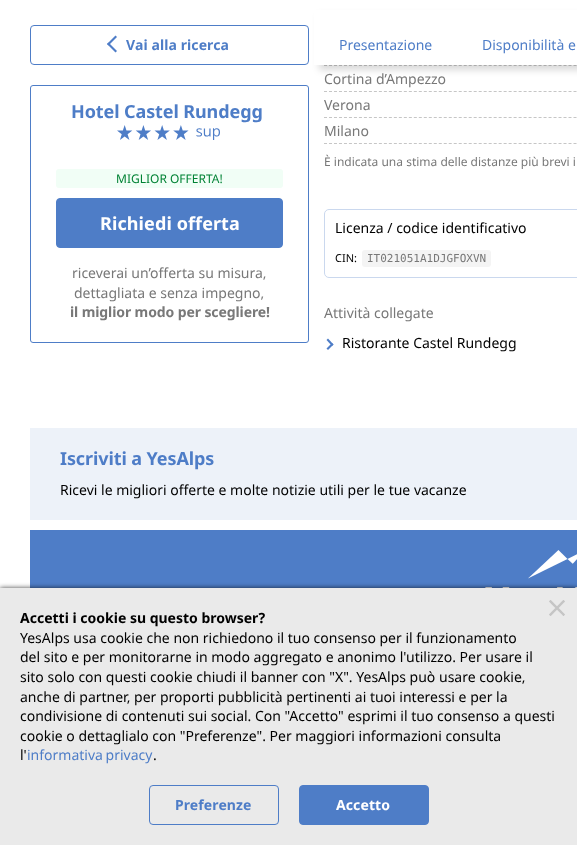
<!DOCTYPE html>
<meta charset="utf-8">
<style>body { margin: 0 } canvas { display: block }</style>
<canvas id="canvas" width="577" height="845"></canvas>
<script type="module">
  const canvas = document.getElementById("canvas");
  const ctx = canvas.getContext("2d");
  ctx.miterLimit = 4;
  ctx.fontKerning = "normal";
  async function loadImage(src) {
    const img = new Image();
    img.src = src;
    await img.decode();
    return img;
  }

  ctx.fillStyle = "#ffffff";
  ctx.fillRect(0, 0, 577, 845);
  ctx.beginPath();
  ctx.roundRect(30.5, 25.5, 278, 39, 3.5);
  ctx.strokeStyle = "#4e7dc7";
  ctx.stroke();
  ctx.fillStyle = "#4e7dc7";
  ctx.beginPath();
  ctx.moveTo(115.5, 52.5);
  ctx.lineTo(107, 44);
  ctx.lineTo(108.5, 42.5);
  ctx.lineTo(117, 51);
  ctx.closePath();
  ctx.fill();
  ctx.beginPath();
  ctx.moveTo(108.5, 45.5);
  ctx.lineTo(107, 44);
  ctx.lineTo(115.5, 35.5);
  ctx.lineTo(117, 37);
  ctx.closePath();
  ctx.fill();
  ctx.letterSpacing = "0.1px";
  ctx.font = "bold 14px Noto Sans";
  ctx.fillText("Vai alla ricerca", 126, 50);
  ctx.beginPath();
  ctx.roundRect(30.5, 85.5, 278, 257, 2.5);
  ctx.stroke();
  ctx.letterSpacing = "-0.1px";
  ctx.font = "bold 18px Noto Sans";
  ctx.fillText("Hotel Castel Rundegg", 71, 118);
  ctx.drawImage(await loadImage("img1.png"), 117, 125, 103, 15);
  ctx.fillStyle = "#f1fef6";
  ctx.beginPath();
  ctx.roundRect(56, 169, 227, 19, 3);
  ctx.fill();
  ctx.letterSpacing = "0px";
  ctx.font = "12px Noto Sans";
  ctx.fillStyle = "#008234";
  ctx.fillText("MIGLIOR OFFERTA!", 116, 183);
  ctx.fillStyle = "#4e7dc7";
  ctx.beginPath();
  ctx.roundRect(56.5, 198.5, 226, 49, 3.5);
  ctx.fill();
  ctx.stroke();
  ctx.letterSpacing = "0.1px";
  ctx.font = "bold 18px Noto Sans";
  ctx.fillStyle = "#ffffff";
  ctx.fillText("Richiedi offerta", 100, 230);
  ctx.letterSpacing = "0px";
  ctx.font = "14px Noto Sans";
  ctx.fillStyle = "#787878";
  ctx.fillText("riceverai un’offerta su misura,", 72, 278);
  ctx.fillText("dettagliata e senza impegno,", 74, 298);
  ctx.letterSpacing = "-0.1px";
  ctx.font = "bold 14px Noto Sans";
  ctx.fillText("il miglior modo per scegliere!", 70, 317);
  ctx.beginPath();
  ctx.moveTo(324, 65.5);
  ctx.lineTo(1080, 65.5);
  ctx.strokeStyle = "#c6c6c6";
  ctx.setLineDash([3, 1.99]);
  ctx.stroke();
  ctx.fillStyle = "rgba(0, 0, 0, 0.15)";
  ctx.filter = "blur(3.5px)";
  ctx.beginPath();
  ctx.rect(319, 15, 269, 55);
  ctx.fill();
  ctx.filter = "none";
  ctx.fillStyle = "#ffffff";
  ctx.fillRect(314, 10, 263, 55);
  ctx.letterSpacing = "0px";
  ctx.font = "14px Noto Sans";
  ctx.fillStyle = "#4e7dc7";
  ctx.fillText("Presentazione", 339, 50);
  ctx.fillText("Disponibilità e", 482, 50);
  ctx.beginPath();
  ctx.moveTo(324, 91.5);
  ctx.lineTo(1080, 91.5);
  ctx.stroke();
  ctx.fillStyle = "#787878";
  ctx.fillText("Cortina d’Ampezzo", 324, 84);
  ctx.beginPath();
  ctx.moveTo(324, 117.5);
  ctx.lineTo(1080, 117.5);
  ctx.stroke();
  ctx.fillText("Verona", 324, 110);
  ctx.beginPath();
  ctx.moveTo(324, 143.5);
  ctx.lineTo(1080, 143.5);
  ctx.stroke();
  ctx.fillText("Milano", 324, 136);
  ctx.font = "12px Noto Sans";
  ctx.fillText("È indicata una stima delle distanze più brevi i", 324, 166);
  ctx.beginPath();
  ctx.roundRect(324.5, 209.5, 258, 68, 4.5);
  ctx.strokeStyle = "#cad8ee";
  ctx.setLineDash([]);
  ctx.stroke();
  ctx.font = "14px Noto Sans";
  ctx.fillStyle = "#000000";
  ctx.fillText("Licenza / codice identificativo", 335, 233);
  ctx.font = "11px Noto Sans";
  ctx.fillText("CIN:", 335, 262);
  ctx.fillStyle = "#f4f4f4";
  ctx.beginPath();
  ctx.roundRect(362, 250, 129, 17, 3);
  ctx.fill();
  ctx.font = "11px DejaVu Sans Mono";
  ctx.fillStyle = "#787878";
  ctx.fillText("IT021051A1DJGFOXVN", 367, 262);
  ctx.font = "14px Noto Sans";
  ctx.fillText("Attività collegate", 324, 318);
  ctx.fillStyle = "#4e7dc7";
  ctx.beginPath();
  ctx.moveTo(328, 338.5);
  ctx.lineTo(333.5, 344.5);
  ctx.lineTo(332, 346);
  ctx.lineTo(326.5, 340);
  ctx.closePath();
  ctx.fill();
  ctx.beginPath();
  ctx.moveTo(332, 343);
  ctx.lineTo(333.5, 344.5);
  ctx.lineTo(328, 350);
  ctx.lineTo(326.5, 348.5);
  ctx.closePath();
  ctx.fill();
  ctx.fillStyle = "#000000";
  ctx.fillText("Ristorante Castel Rundegg", 342, 348);
  ctx.fillStyle = "#edf2f9";
  ctx.fillRect(30, 428, 547, 92);
  ctx.letterSpacing = "-0.1px";
  ctx.font = "bold 18px Noto Sans";
  ctx.fillStyle = "#4e7dc7";
  ctx.fillText("Iscriviti a YesAlps", 60, 465);
  ctx.letterSpacing = "0px";
  ctx.font = "14px Noto Sans";
  ctx.fillStyle = "#000000";
  ctx.fillText("Ricevi le migliori offerte e molte notizie utili per le tue vacanze", 60, 495);
  ctx.fillStyle = "#4e7dc7";
  ctx.fillRect(30, 530, 547, 58);
  ctx.drawImage(await loadImage("img2.png"), 485, 550, 92, 38);
  ctx.fillStyle = "rgba(0, 0, 0, 0.75)";
  ctx.filter = "blur(2.5px)";
  ctx.beginPath();
  ctx.rect(0, 588, 577, 257);
  ctx.fill();
  ctx.filter = "none";
  ctx.fillStyle = "#eaeaea";
  ctx.fillRect(0, 588, 577, 257);
  ctx.drawImage(await loadImage("img3.png"), 549, 600, 16, 16);
  ctx.font = "bold 14px Noto Sans";
  ctx.fillStyle = "#000000";
  ctx.fillText("Accetti i cookie su questo browser?", 20, 623);
  ctx.font = "14px Noto Sans";
  ctx.fillText("YesAlps usa cookie che non richiedono il tuo consenso per il funzionamento", 20, 643);
  ctx.fillText("del sito e per monitorarne in modo aggregato e anonimo l'utilizzo. Per usare il", 20, 662);
  ctx.fillText("sito solo con questi cookie chiudi il banner con \"X\". YesAlps può usare cookie,", 20, 682);
  ctx.fillText("anche di partner, per proporti pubblicità pertinenti ai tuoi interessi e per la", 20, 702);
  ctx.fillText("condivisione di contenuti sui social. Con \"Accetto\" esprimi il tuo consenso a questi", 20, 721);
  ctx.fillText("cookie o dettaglialo con \"Preferenze\". Per maggiori informazioni consulta", 20, 741);
  ctx.fillText("l'", 20, 760);
  ctx.wordSpacing = "-1px";
  ctx.fillStyle = "#4e7dc7";
  ctx.fillText("informativa privacy", 27, 760);
  ctx.wordSpacing = "0px";
  ctx.fillStyle = "#000000";
  ctx.fillText(".", 153, 760);
  ctx.beginPath();
  ctx.roundRect(149.5, 785.5, 129, 39, 3.5);
  ctx.strokeStyle = "#4e7dc7";
  ctx.stroke();
  ctx.letterSpacing = "0.1px";
  ctx.font = "bold 14px Noto Sans";
  ctx.fillStyle = "#4e7dc7";
  ctx.fillText("Preferenze", 175, 810);
  ctx.beginPath();
  ctx.roundRect(299.5, 785.5, 129, 39, 3.5);
  ctx.fill();
  ctx.stroke();
  ctx.fillStyle = "#ffffff";
  ctx.fillText("Accetto", 336, 810);
</script>
